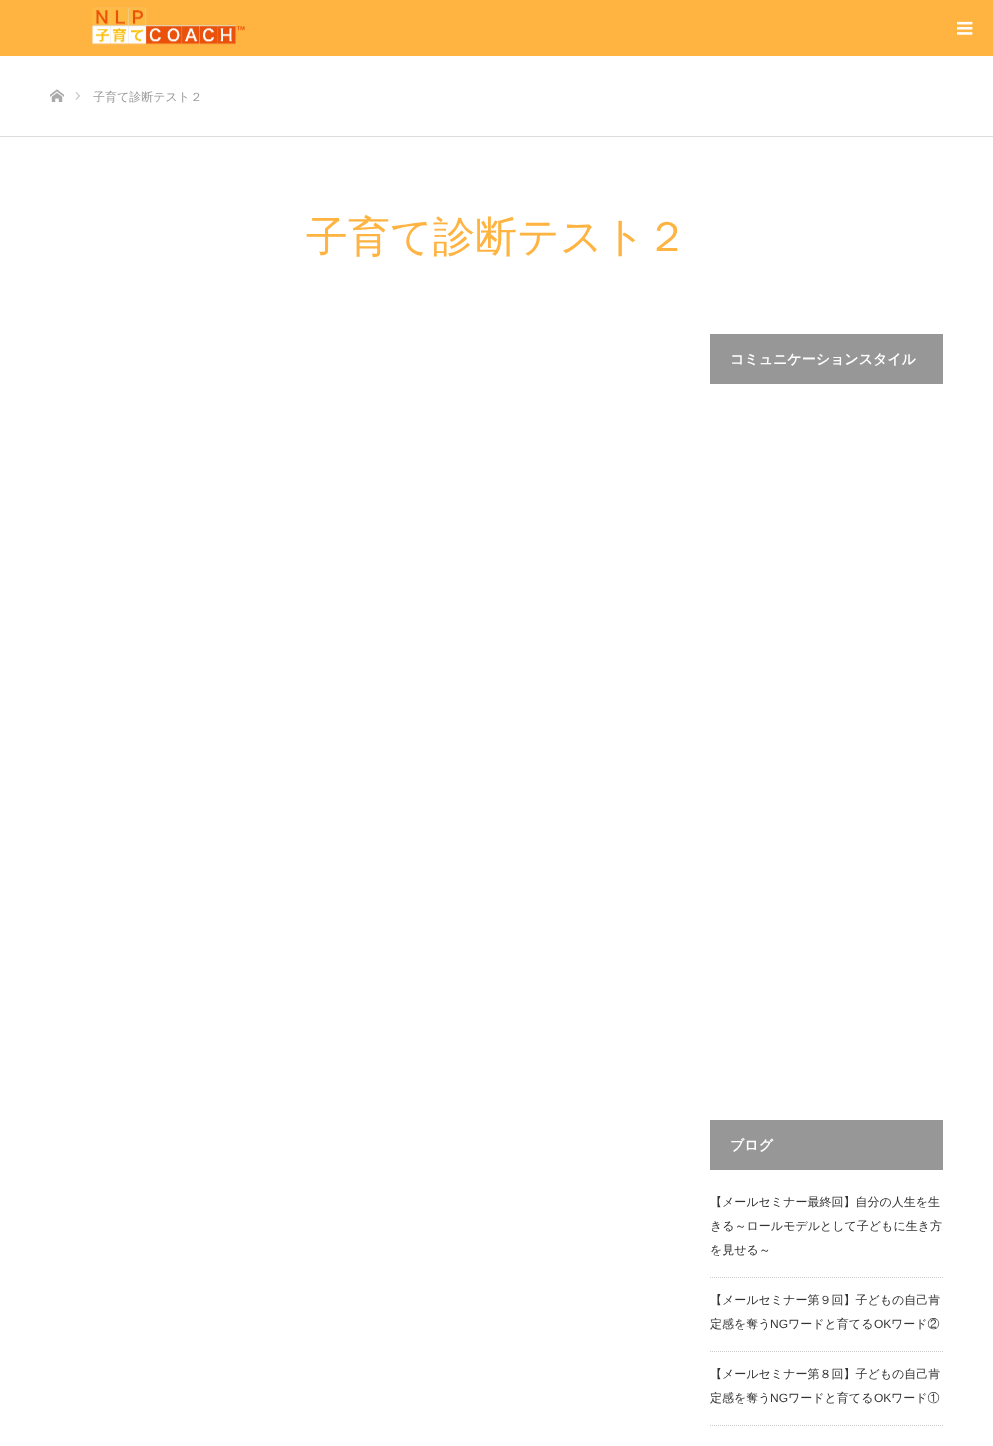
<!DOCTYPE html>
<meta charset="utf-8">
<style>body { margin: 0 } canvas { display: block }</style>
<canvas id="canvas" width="993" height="1446"></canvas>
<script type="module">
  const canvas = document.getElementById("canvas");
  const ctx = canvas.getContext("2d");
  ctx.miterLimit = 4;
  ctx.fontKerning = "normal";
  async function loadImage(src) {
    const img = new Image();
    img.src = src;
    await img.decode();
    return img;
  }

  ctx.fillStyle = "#ffffff";
  ctx.fillRect(0, 0, 993, 1446);
  ctx.fillStyle = "#ffb340";
  ctx.fillRect(0, 0, 993, 56);
  ctx.drawImage(await loadImage("img1.png"), 92, 7, 153, 38);
  ctx.drawImage(await loadImage("img2.png"), 957, 21, 16, 14);
  ctx.fillStyle = "#dddddd";
  ctx.fillRect(0, 136, 993, 1);
  ctx.drawImage(await loadImage("img3.png"), 50, 89, 14, 13);
  ctx.drawImage(await loadImage("img4.png"), 75, 92, 5, 8);
  ctx.font = "500 12px WenQuanYi Zen Hei";
  ctx.fillStyle = "#999999";
  ctx.fillText("子育て診断テスト２", 93, 101);
  ctx.font = "500 42px WenQuanYi Zen Hei";
  ctx.fillStyle = "#ffb340";
  ctx.fillText("子育て診断テスト２", 306, 251);
  ctx.fillStyle = "#979797";
  ctx.fillRect(710, 334, 233, 50);
  ctx.font = "bold 14px WenQuanYi Zen Hei";
  ctx.fillStyle = "#ffffff";
  ctx.fillText("コミュニケーションスタイル", 730, 364);
  ctx.fillStyle = "#979797";
  ctx.fillRect(710, 1120, 233, 50);
  ctx.fillStyle = "#ffffff";
  ctx.fillText("ブログ", 730, 1150);
  ctx.beginPath();
  ctx.moveTo(710, 1277.5);
  ctx.lineTo(943, 1277.5);
  ctx.strokeStyle = "#cccccc";
  ctx.setLineDash([1, 1]);
  ctx.stroke();
  ctx.font = "500 12px WenQuanYi Zen Hei";
  ctx.fillStyle = "#333333";
  ctx.fillText("【メールセミナー最終回】自分の人生を生", 710, 1206);
  ctx.fillText("きる～ロールモデルとして子どもに生き方", 710, 1230);
  ctx.fillText("を見せる～", 710, 1254);
  ctx.beginPath();
  ctx.moveTo(710, 1351.5);
  ctx.lineTo(943, 1351.5);
  ctx.stroke();
  ctx.fillText("【メールセミナー第９回】子どもの自己肯", 710, 1304);
  ctx.fillText("定感を奪う", 710, 1328);
  ctx.font = "12px Liberation Sans";
  ctx.fillText("NG", 770, 1328);
  ctx.font = "500 12px WenQuanYi Zen Hei";
  ctx.fillText("ワードと育てる", 788, 1328);
  ctx.font = "12px Liberation Sans";
  ctx.fillText("OK", 874, 1328);
  ctx.font = "500 12px WenQuanYi Zen Hei";
  ctx.fillText("ワード②", 891, 1328);
  ctx.beginPath();
  ctx.moveTo(710, 1425.5);
  ctx.lineTo(943, 1425.5);
  ctx.stroke();
  ctx.fillText("【メールセミナー第８回】子どもの自己肯", 710, 1378);
  ctx.fillText("定感を奪う", 710, 1402);
  ctx.font = "12px Liberation Sans";
  ctx.fillText("NG", 770, 1402);
  ctx.font = "500 12px WenQuanYi Zen Hei";
  ctx.fillText("ワードと育てる", 788, 1402);
  ctx.font = "12px Liberation Sans";
  ctx.fillText("OK", 874, 1402);
  ctx.font = "500 12px WenQuanYi Zen Hei";
  ctx.fillText("ワード①", 891, 1402);
</script>
